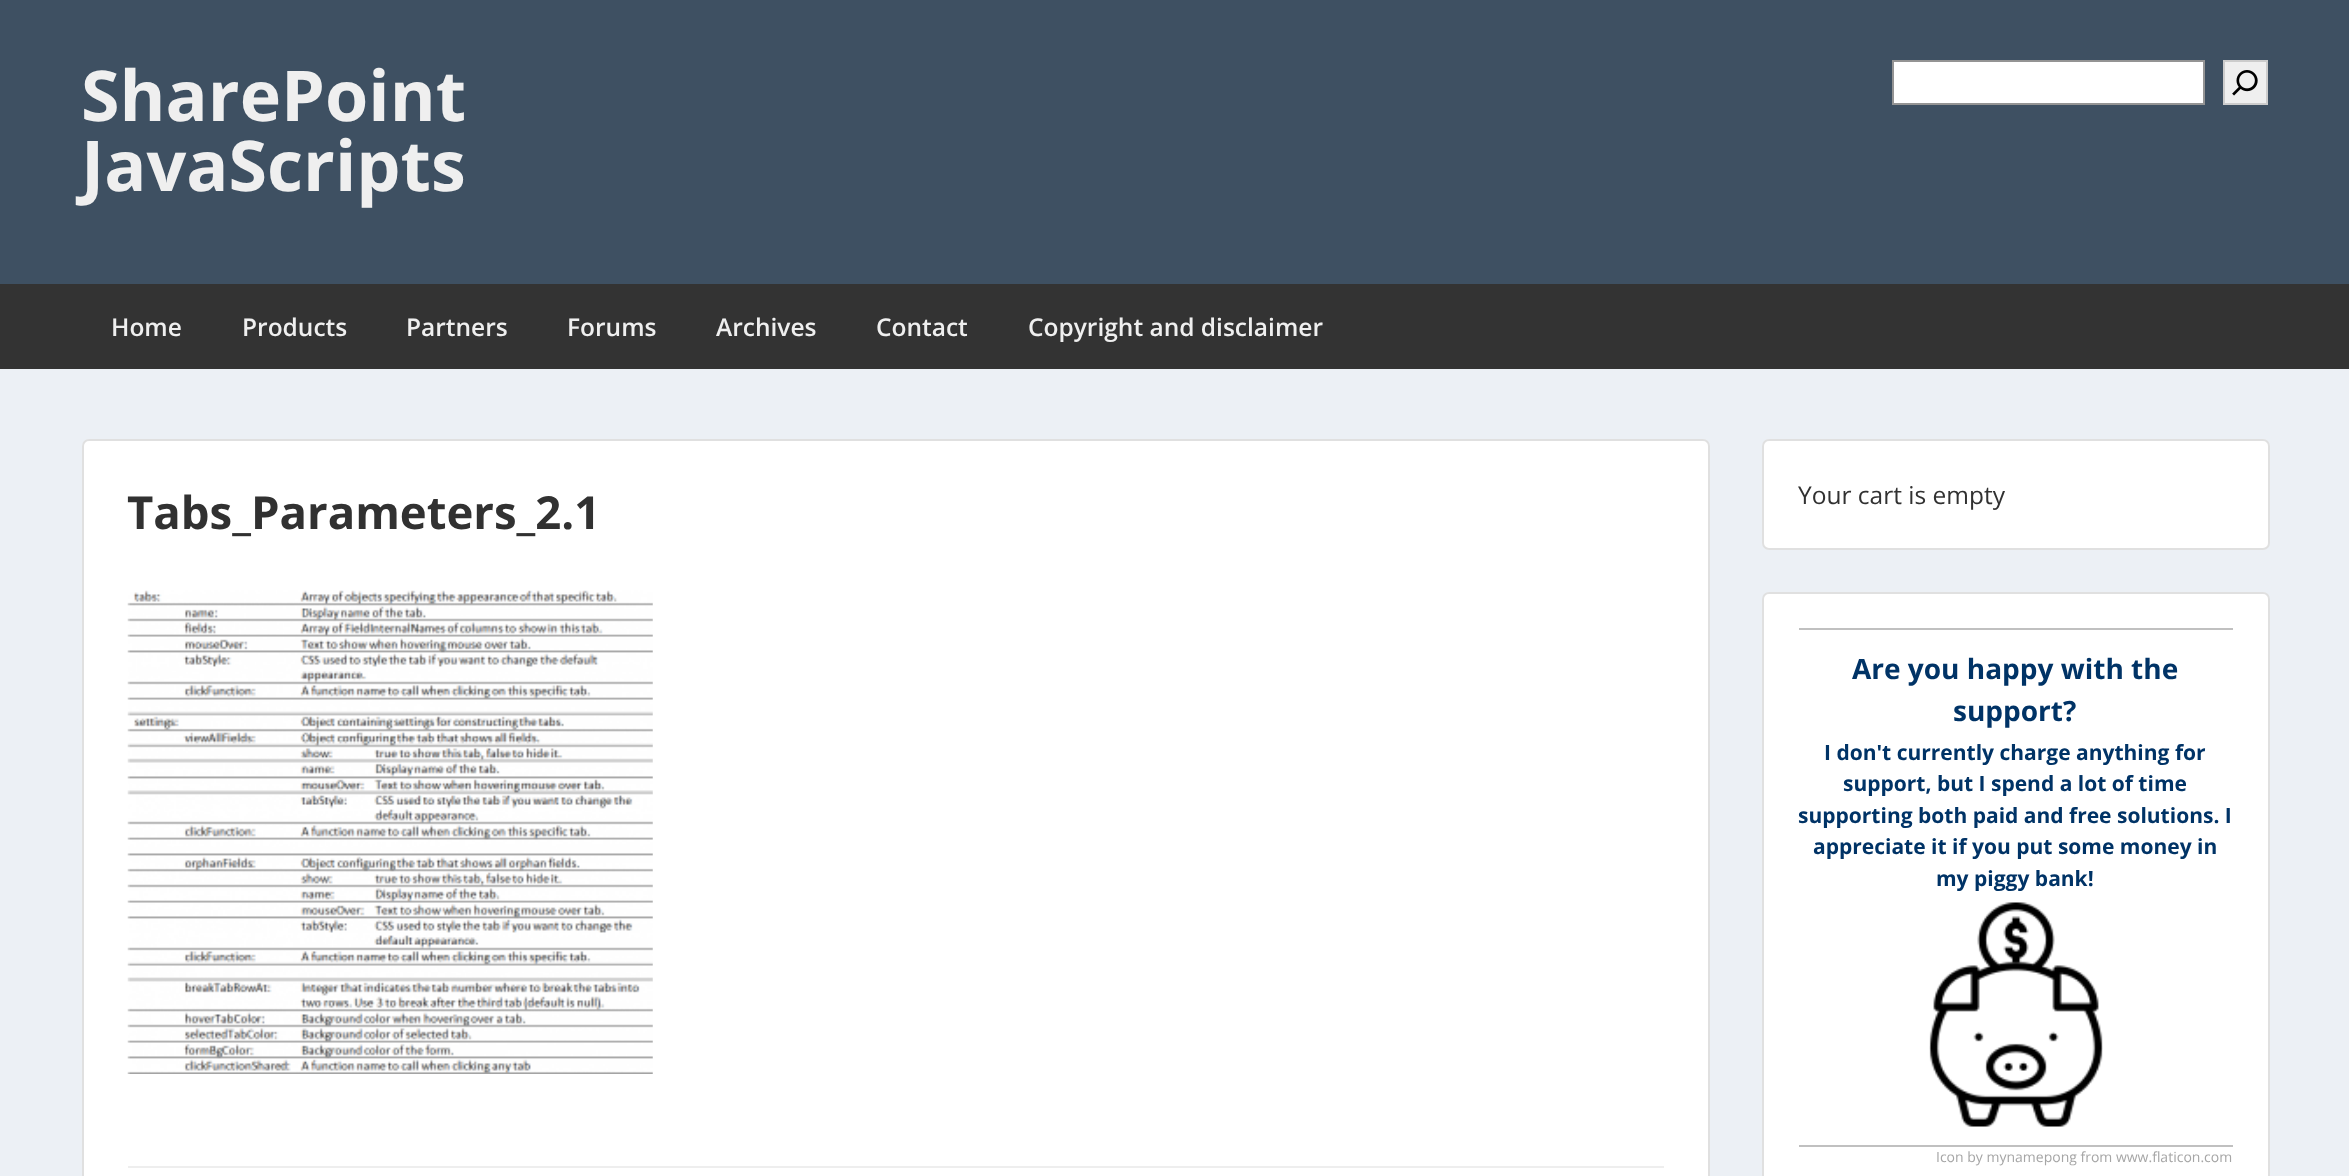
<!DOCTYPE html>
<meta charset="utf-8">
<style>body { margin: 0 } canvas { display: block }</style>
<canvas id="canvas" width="2349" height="1176"></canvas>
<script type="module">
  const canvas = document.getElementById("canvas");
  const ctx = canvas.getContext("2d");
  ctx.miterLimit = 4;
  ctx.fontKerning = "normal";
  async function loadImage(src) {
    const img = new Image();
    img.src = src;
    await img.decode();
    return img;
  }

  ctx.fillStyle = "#ecf0f5";
  ctx.fillRect(0, 0, 2349, 1176);
  ctx.fillStyle = "#3e5062";
  ctx.fillRect(0, 0, 2349, 284);
  ctx.font = "bold 70px Open Sans";
  ctx.fillStyle = "#efefef";
  ctx.fillText("SharePoint", 81, 121);
  ctx.fillText("JavaScripts", 81, 191);
  ctx.fillStyle = "#ffffff";
  ctx.beginPath();
  ctx.rect(1893, 61, 311, 43);
  ctx.fill();
  ctx.strokeStyle = "#949494";
  ctx.lineWidth = 2;
  ctx.stroke();
  ctx.fillStyle = "#efefef";
  ctx.beginPath();
  ctx.rect(2224, 61, 43, 43);
  ctx.fill();
  ctx.strokeStyle = "#cccccc";
  ctx.stroke();
  ctx.drawImage(await loadImage("img1.png"), 2232, 70, 26, 26);
  ctx.fillStyle = "#333333";
  ctx.fillRect(0, 284, 2349, 85);
  ctx.font = "600 24.5px Open Sans";
  ctx.fillStyle = "#efefef";
  ctx.fillText("Home", 111, 336);
  ctx.fillText("Products", 242, 336);
  ctx.fillText("Partners", 406, 336);
  ctx.fillText("Forums", 567, 336);
  ctx.fillText("Archives", 716, 336);
  ctx.fillText("Contact", 876, 336);
  ctx.fillText("Copyright and disclaimer", 1028, 336);
  ctx.fillStyle = "#ffffff";
  ctx.beginPath();
  ctx.roundRect(82, 439, 1628, 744, 7);
  ctx.fill();
  ctx.beginPath();
  ctx.roundRect(83, 440, 1626, 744, 6);
  ctx.strokeStyle = "rgba(0, 0, 0, 0.12)";
  ctx.stroke();
  ctx.font = "bold 45.5px Open Sans";
  ctx.fillStyle = "#313131";
  ctx.fillText("Tabs_Parameters_2.1", 127, 529);
  ctx.drawImage(await loadImage("img2.png"), 127, 590, 526, 484);
  ctx.fillStyle = "#eeeeee";
  ctx.fillRect(128, 1166, 1536, 2);
  ctx.fillStyle = "#ffffff";
  ctx.beginPath();
  ctx.roundRect(1762, 439, 508, 111, 7);
  ctx.fill();
  ctx.beginPath();
  ctx.roundRect(1763, 440, 506, 109, 6);
  ctx.stroke();
  ctx.font = "24.5px Open Sans";
  ctx.fillStyle = "#313131";
  ctx.fillText("Your cart is empty", 1798, 504);
  ctx.fillStyle = "#ffffff";
  ctx.beginPath();
  ctx.roundRect(1762, 592, 508, 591, 7);
  ctx.fill();
  ctx.beginPath();
  ctx.roundRect(1763, 593, 506, 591, 6);
  ctx.stroke();
  ctx.fillStyle = "#c0c0c0";
  ctx.fillRect(1799, 628, 434, 2);
  ctx.fillRect(1799, 1145, 434, 2);
  ctx.font = "bold 28px Open Sans";
  ctx.fillStyle = "#003366";
  ctx.fillText("Are you happy with the", 1852, 679);
  ctx.fillText("support?", 1953, 721);
  ctx.font = "bold 21px Open Sans";
  ctx.fillText("I don't currently charge anything for", 1824, 760);
  ctx.fillText("support, but I spend a lot of time", 1843, 791);
  ctx.fillText("supporting both paid and free solutions. I", 1798, 823);
  ctx.fillText("appreciate it if you put some money in", 1813, 854);
  ctx.fillText("my piggy bank!", 1936, 886);
  ctx.drawImage(await loadImage("img3.png"), 1929, 902, 174, 225);
  ctx.font = "14px Open Sans";
  ctx.fillStyle = "#a6a6a6";
  ctx.fillText("Icon by mynamepong from www.flaticon.com", 1936, 1162);
</script>
